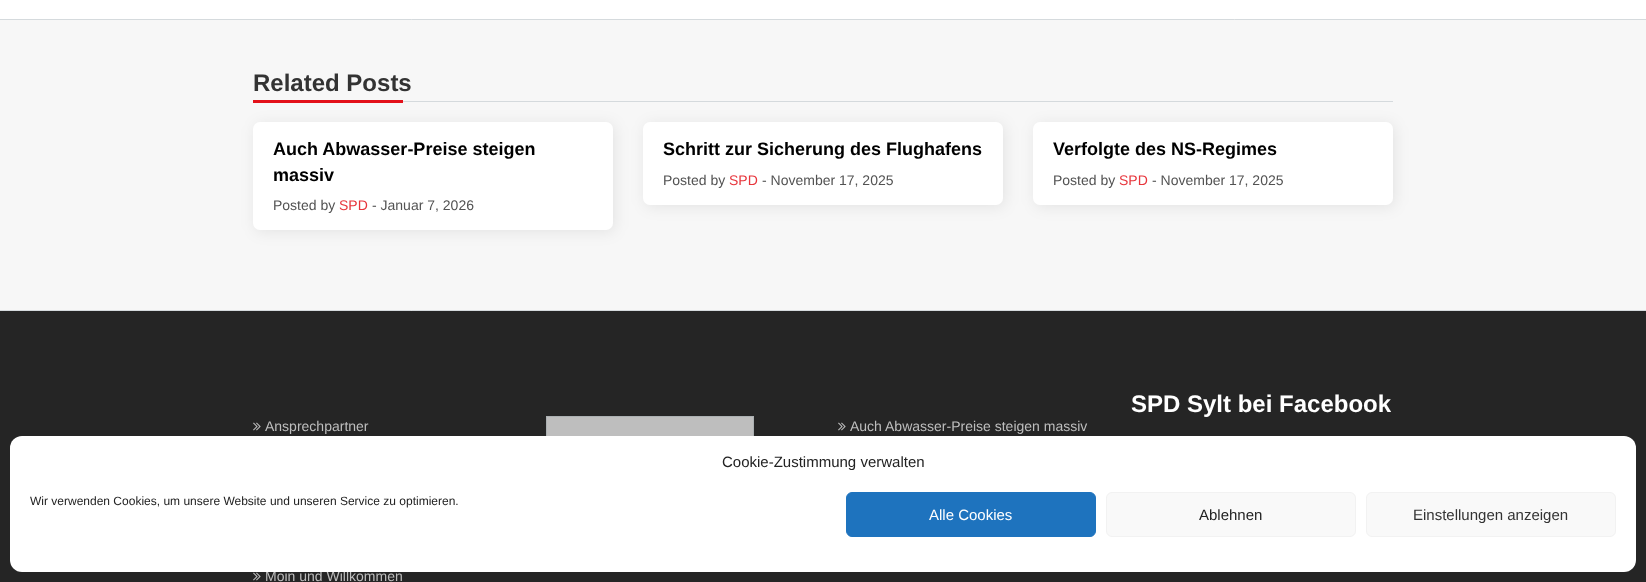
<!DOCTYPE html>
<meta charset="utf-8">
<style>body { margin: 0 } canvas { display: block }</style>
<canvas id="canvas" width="1646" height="582"></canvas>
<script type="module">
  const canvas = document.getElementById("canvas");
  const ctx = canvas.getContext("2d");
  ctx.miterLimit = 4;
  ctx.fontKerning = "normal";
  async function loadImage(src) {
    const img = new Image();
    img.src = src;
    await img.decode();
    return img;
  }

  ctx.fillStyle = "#ffffff";
  ctx.fillRect(0, 0, 1646, 582);
  ctx.fillStyle = "#f7f7f7";
  ctx.beginPath();
  ctx.rect(-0.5, 19.5, 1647, 291);
  ctx.fill();
  ctx.strokeStyle = "#d5dadd";
  ctx.stroke();
  ctx.fillStyle = "#d5dadd";
  ctx.fillRect(403, 101, 990, 1);
  ctx.font = "bold 24px Liberation Sans";
  ctx.fillStyle = "#333333";
  ctx.fillText("Related Posts", 253, 91);
  ctx.fillStyle = "#e3111a";
  ctx.fillRect(253, 100, 150, 3);
  ctx.fillStyle = "rgba(0, 0, 0, 0.08)";
  ctx.filter = "blur(7.5px)";
  ctx.beginPath();
  ctx.roundRect(255, 124, 360, 108, 7);
  ctx.fill();
  ctx.filter = "none";
  ctx.fillStyle = "#ffffff";
  ctx.beginPath();
  ctx.roundRect(253, 122, 360, 108, 7);
  ctx.fill();
  ctx.font = "bold 18px Liberation Sans";
  ctx.fillStyle = "#000000";
  ctx.fillText("Auch Abwasser-Preise steigen", 273, 155);
  ctx.fillText("massiv", 273, 181);
  ctx.font = "14px Liberation Sans";
  ctx.fillStyle = "#525252";
  ctx.fillText("Posted by", 273, 210);
  ctx.fillStyle = "#e7353c";
  ctx.fillText("SPD", 339, 210);
  ctx.fillStyle = "#525252";
  ctx.fillText("- Januar 7, 2026", 372, 210);
  ctx.fillStyle = "rgba(0, 0, 0, 0.08)";
  ctx.filter = "blur(7.5px)";
  ctx.beginPath();
  ctx.roundRect(645, 124, 360, 83, 7);
  ctx.fill();
  ctx.filter = "none";
  ctx.fillStyle = "#ffffff";
  ctx.beginPath();
  ctx.roundRect(643, 122, 360, 83, 7);
  ctx.fill();
  ctx.font = "bold 18px Liberation Sans";
  ctx.fillStyle = "#000000";
  ctx.fillText("Schritt zur Sicherung des Flughafens", 663, 155);
  ctx.font = "14px Liberation Sans";
  ctx.fillStyle = "#525252";
  ctx.fillText("Posted by", 663, 185);
  ctx.fillStyle = "#e7353c";
  ctx.fillText("SPD", 729, 185);
  ctx.fillStyle = "#525252";
  ctx.fillText("- November 17, 2025", 762, 185);
  ctx.fillStyle = "rgba(0, 0, 0, 0.08)";
  ctx.filter = "blur(7.5px)";
  ctx.beginPath();
  ctx.roundRect(1035, 124, 360, 83, 7);
  ctx.fill();
  ctx.filter = "none";
  ctx.fillStyle = "#ffffff";
  ctx.beginPath();
  ctx.roundRect(1033, 122, 360, 83, 7);
  ctx.fill();
  ctx.font = "bold 18px Liberation Sans";
  ctx.fillStyle = "#000000";
  ctx.fillText("Verfolgte des NS-Regimes", 1053, 155);
  ctx.font = "14px Liberation Sans";
  ctx.fillStyle = "#525252";
  ctx.fillText("Posted by", 1053, 185);
  ctx.fillStyle = "#e7353c";
  ctx.fillText("SPD", 1119, 185);
  ctx.fillStyle = "#525252";
  ctx.fillText("- November 17, 2025", 1152, 185);
  ctx.fillStyle = "#252525";
  ctx.fillRect(0, 311, 1646, 271);
  ctx.font = "bold 24px Liberation Sans";
  ctx.fillStyle = "#ffffff";
  ctx.fillText("SPD Sylt bei Facebook", 1131, 412);
  ctx.drawImage(await loadImage("img1.png"), 253, 422, 8, 9);
  ctx.font = "14px Liberation Sans";
  ctx.fillStyle = "#bebebe";
  ctx.fillText("Ansprechpartner", 265, 431);
  ctx.drawImage(await loadImage("img1.png"), 253, 572, 8, 9);
  ctx.fillText("Moin und Willkommen", 265, 581);
  ctx.fillRect(547, 417, 206, 19);
  ctx.strokeStyle = "#abb0b2";
  ctx.strokeRect(546.5, 416.5, 207, 41);
  ctx.drawImage(await loadImage("img1.png"), 838, 422, 8, 9);
  ctx.fillText("Auch Abwasser-Preise steigen massiv", 850, 431);
  ctx.fillStyle = "#ffffff";
  ctx.beginPath();
  ctx.roundRect(10, 436, 1626, 136, 12);
  ctx.fill();
  ctx.font = "15px Liberation Sans";
  ctx.fillStyle = "#222222";
  ctx.fillText("Cookie-Zustimmung verwalten", 722, 467);
  ctx.font = "12px Liberation Sans";
  ctx.fillText("Wir verwenden Cookies, um unsere Website und unseren Service zu optimieren.", 30, 505);
  ctx.fillStyle = "#1e73be";
  ctx.beginPath();
  ctx.roundRect(846.5, 492.5, 249, 44, 5.5);
  ctx.fill();
  ctx.strokeStyle = "#1e73be";
  ctx.stroke();
  ctx.font = "15px Liberation Sans";
  ctx.fillStyle = "#ffffff";
  ctx.fillText("Alle Cookies", 929, 520);
  ctx.fillStyle = "#f9f9f9";
  ctx.beginPath();
  ctx.roundRect(1106.5, 492.5, 249, 44, 5.5);
  ctx.fill();
  ctx.strokeStyle = "#f2f2f2";
  ctx.stroke();
  ctx.fillStyle = "#222222";
  ctx.fillText("Ablehnen", 1199, 520);
  ctx.fillStyle = "#f9f9f9";
  ctx.beginPath();
  ctx.roundRect(1366.5, 492.5, 249, 44, 5.5);
  ctx.fill();
  ctx.stroke();
  ctx.fillStyle = "#333333";
  ctx.fillText("Einstellungen anzeigen", 1413, 520);
</script>
